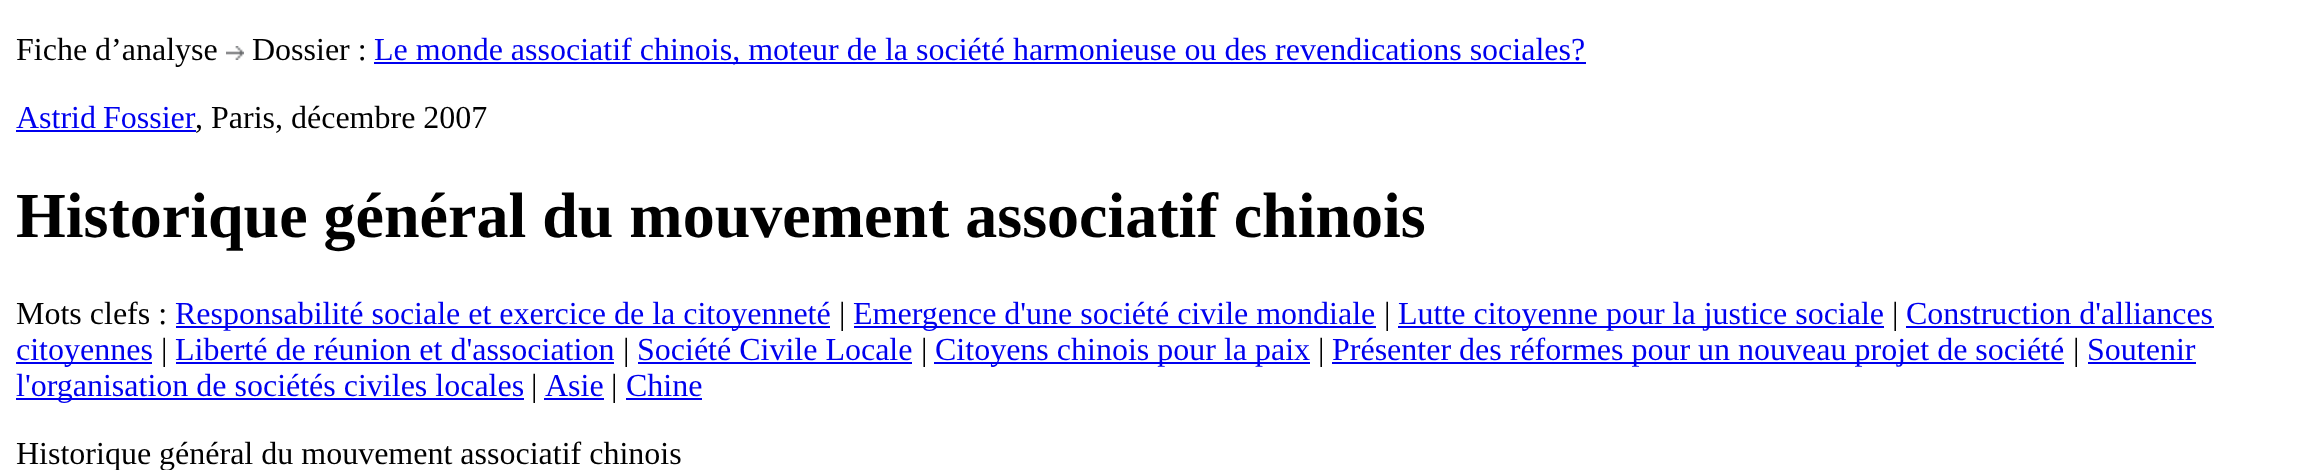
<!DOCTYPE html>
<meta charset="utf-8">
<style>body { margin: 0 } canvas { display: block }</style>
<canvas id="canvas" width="2318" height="470"></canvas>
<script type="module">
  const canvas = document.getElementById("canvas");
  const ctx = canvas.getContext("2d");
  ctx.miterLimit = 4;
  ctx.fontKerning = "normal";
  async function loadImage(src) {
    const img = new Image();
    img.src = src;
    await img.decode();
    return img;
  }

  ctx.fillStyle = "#ffffff";
  ctx.fillRect(0, 0, 2318, 470);
  ctx.font = "32px Liberation Serif";
  ctx.fillStyle = "#000000";
  ctx.fillText("Fiche d’analyse", 16, 60);
  ctx.drawImage(await loadImage("img1.png"), 226, 46, 18, 14);
  ctx.fillText("Dossier :", 252, 60);
  ctx.fillStyle = "#0000ee";
  ctx.fillRect(374, 62, 1212, 2);
  ctx.fillText("Le monde associatif chinois, moteur de la société harmonieuse ou des revendications sociales?", 374, 60);
  ctx.wordSpacing = "-1px";
  ctx.fillText("Astrid Fossier", 16, 128);
  ctx.fillRect(16, 130, 180, 2);
  ctx.wordSpacing = "0px";
  ctx.fillStyle = "#000000";
  ctx.fillText(", Paris, décembre 2007", 195, 128);
  ctx.font = "bold 64px Liberation Serif";
  ctx.fillText("Historique général du mouvement associatif chinois", 16, 237);
  ctx.font = "32px Liberation Serif";
  ctx.fillText("Mots clefs :", 16, 324);
  ctx.fillStyle = "#0000ee";
  ctx.fillRect(176, 326, 654, 2);
  ctx.fillText("Responsabilité sociale et exercice de la citoyenneté", 175, 324);
  ctx.fillStyle = "#000000";
  ctx.fillText("|", 839, 324);
  ctx.fillStyle = "#0000ee";
  ctx.fillRect(854, 326, 522, 2);
  ctx.fillText("Emergence d'une société civile mondiale", 853, 324);
  ctx.fillStyle = "#000000";
  ctx.fillText("|", 1384, 324);
  ctx.fillStyle = "#0000ee";
  ctx.fillRect(1398, 326, 486, 2);
  ctx.fillText("Lutte citoyenne pour la justice sociale", 1398, 324);
  ctx.fillStyle = "#000000";
  ctx.fillText("|", 1892, 324);
  ctx.fillStyle = "#0000ee";
  ctx.fillText("Construction d'alliances", 1906, 324);
  ctx.fillRect(1906, 326, 308, 2);
  ctx.fillRect(16, 362, 136, 2);
  ctx.fillText("citoyennes", 16, 360);
  ctx.fillStyle = "#000000";
  ctx.fillText("|", 161, 360);
  ctx.fillStyle = "#0000ee";
  ctx.fillText("Liberté de réunion et d'association", 175, 360);
  ctx.fillRect(176, 362, 438, 2);
  ctx.fillStyle = "#000000";
  ctx.fillText("|", 623, 360);
  ctx.fillStyle = "#0000ee";
  ctx.fillText("Société Civile Locale", 637, 360);
  ctx.fillRect(638, 362, 274, 2);
  ctx.fillStyle = "#000000";
  ctx.fillText("|", 921, 360);
  ctx.fillStyle = "#0000ee";
  ctx.fillRect(934, 362, 376, 2);
  ctx.fillText("Citoyens chinois pour la paix", 935, 360);
  ctx.fillStyle = "#000000";
  ctx.fillText("|", 1318, 360);
  ctx.fillStyle = "#0000ee";
  ctx.fillRect(1332, 362, 732, 2);
  ctx.fillText("Présenter des réformes pour un nouveau projet de société", 1332, 360);
  ctx.fillStyle = "#000000";
  ctx.fillText("|", 2073, 360);
  ctx.fillStyle = "#0000ee";
  ctx.fillText("Soutenir", 2087, 360);
  ctx.fillRect(2088, 362, 108, 2);
  ctx.fillRect(16, 398, 508, 2);
  ctx.fillText("l'organisation de sociétés civiles locales", 16, 396);
  ctx.fillStyle = "#000000";
  ctx.fillText("|", 531, 396);
  ctx.fillStyle = "#0000ee";
  ctx.fillText("Asie", 545, 396);
  ctx.fillRect(544, 398, 60, 2);
  ctx.fillStyle = "#000000";
  ctx.fillText("|", 611, 396);
  ctx.fillStyle = "#0000ee";
  ctx.fillText("Chine", 626, 396);
  ctx.fillRect(626, 398, 76, 2);
  ctx.fillStyle = "#000000";
  ctx.fillText("Historique général du mouvement associatif chinois", 16, 464);
</script>
